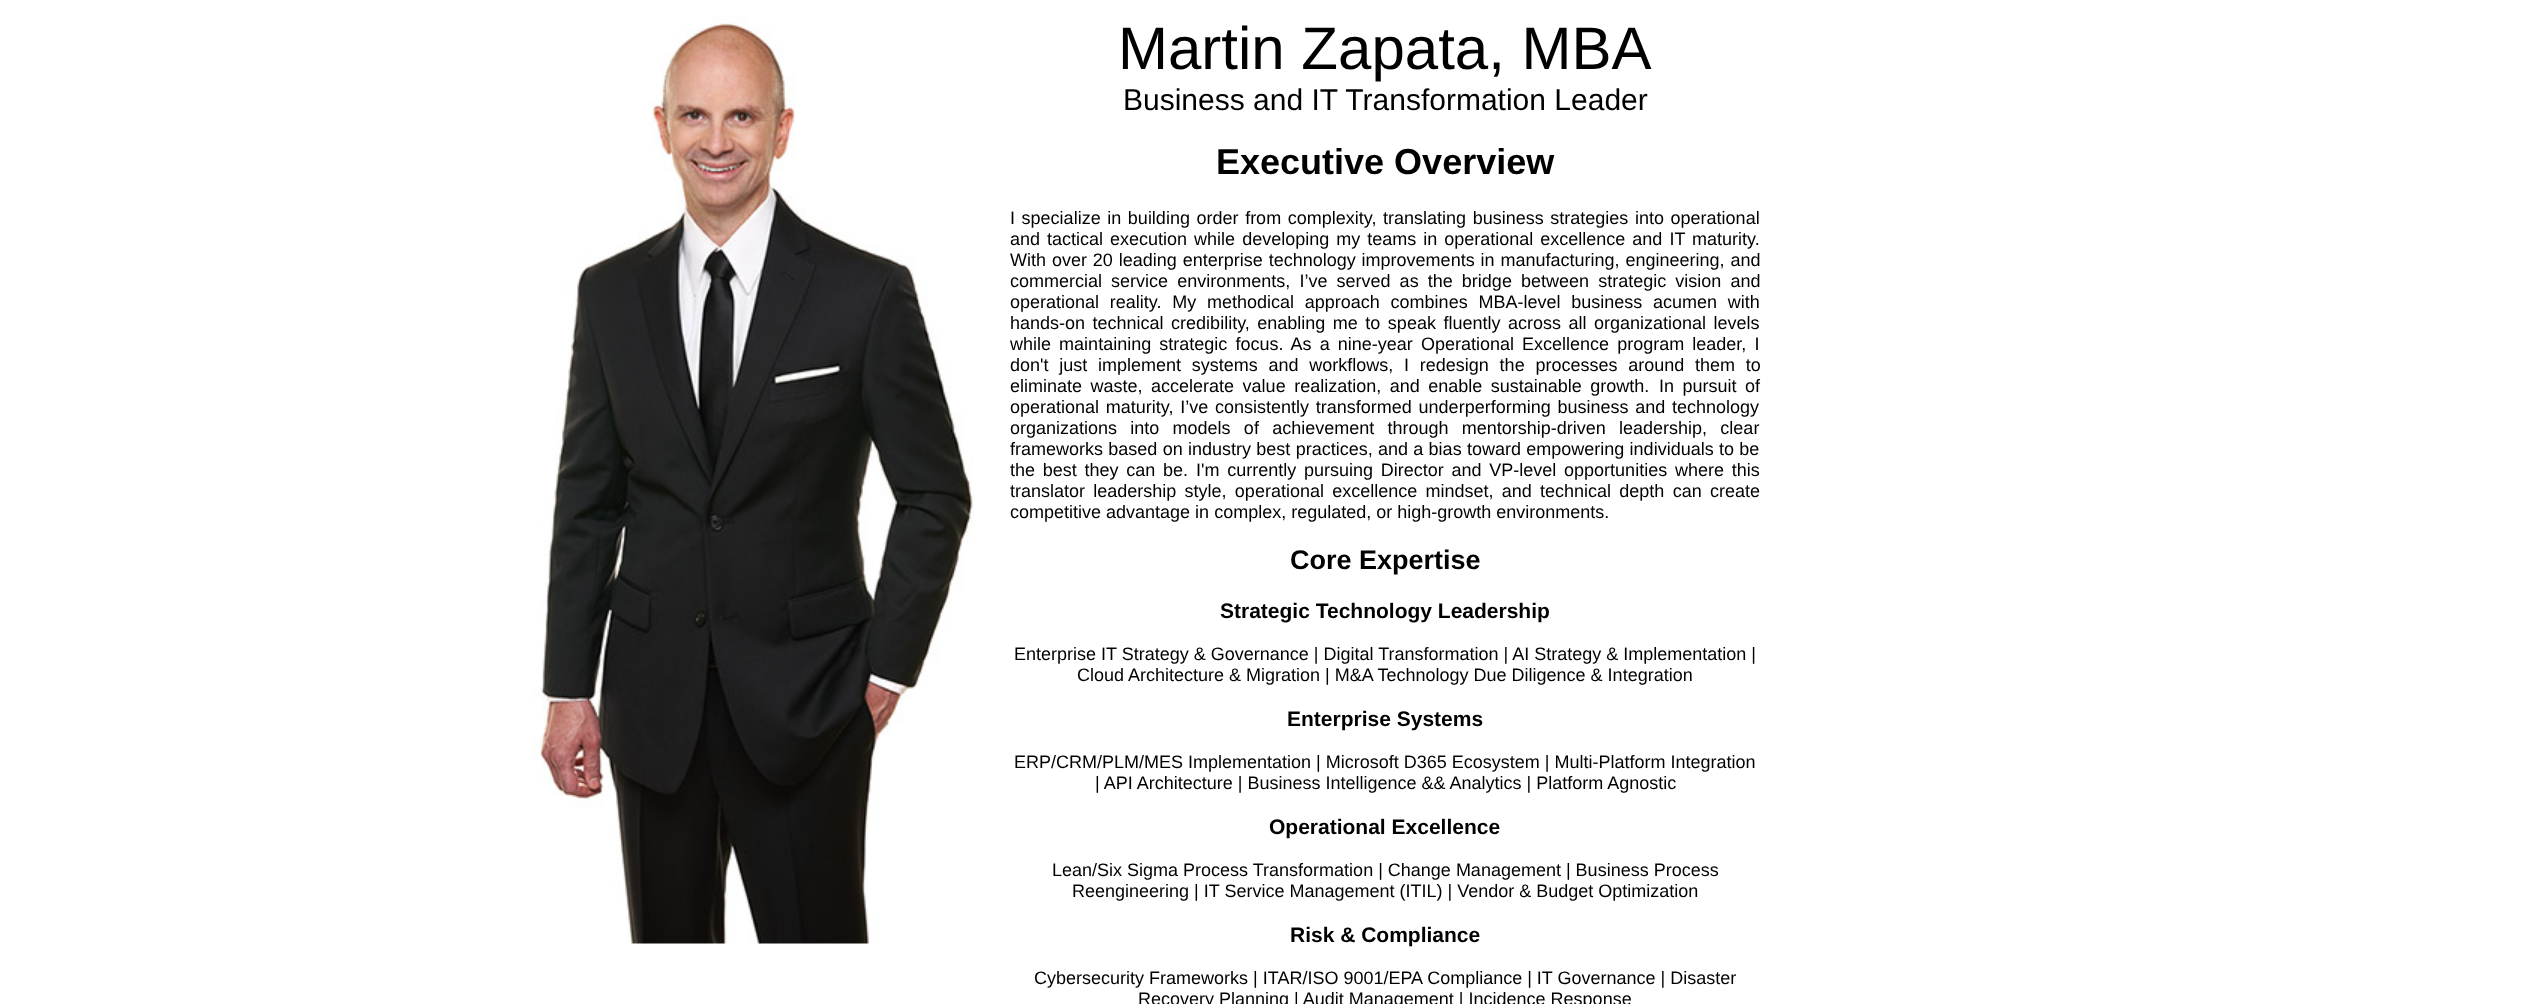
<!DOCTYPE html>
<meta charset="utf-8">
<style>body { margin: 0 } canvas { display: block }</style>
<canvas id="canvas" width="2530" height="1004"></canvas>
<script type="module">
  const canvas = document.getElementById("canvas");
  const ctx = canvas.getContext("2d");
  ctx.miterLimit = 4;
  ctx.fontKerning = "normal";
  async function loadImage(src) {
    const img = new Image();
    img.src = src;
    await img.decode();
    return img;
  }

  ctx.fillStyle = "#ffffff";
  ctx.fillRect(0, 0, 2530, 1004);
  ctx.drawImage(await loadImage("img1.png"), 532, 15, 442, 929);
  ctx.font = "60px Liberation Sans";
  ctx.fillStyle = "#000000";
  ctx.fillText("Martin Zapata, MBA", 1118, 69);
  ctx.font = "30px Liberation Sans";
  ctx.fillText("Business and IT Transformation Leader", 1123, 110);
  ctx.font = "bold 36px Liberation Sans";
  ctx.fillText("Executive Overview", 1216, 174);
  ctx.wordSpacing = "1.6px";
  ctx.font = "18px Liberation Sans";
  ctx.fillText("I specialize in building order from complexity, translating business strategies into operational", 1010, 224);
  ctx.wordSpacing = "2px";
  ctx.fillText("and tactical execution while developing my teams in operational excellence and IT maturity.", 1010, 245);
  ctx.wordSpacing = "0.9px";
  ctx.fillText("With over 20 leading enterprise technology improvements in manufacturing, engineering, and", 1010, 266);
  ctx.wordSpacing = "4.1px";
  ctx.fillText("commercial service environments, I’ve served as the bridge between strategic vision and", 1010, 287);
  ctx.wordSpacing = "5.75px";
  ctx.fillText("operational reality. My methodical approach combines MBA-level business acumen with", 1010, 308);
  ctx.wordSpacing = "2.5px";
  ctx.fillText("hands-on technical credibility, enabling me to speak fluently across all organizational levels", 1010, 329);
  ctx.wordSpacing = "3.1px";
  ctx.fillText("while maintaining strategic focus. As a nine-year Operational Excellence program leader, I", 1010, 350);
  ctx.wordSpacing = "5.75px";
  ctx.fillText("don't just implement systems and workflows, I redesign the processes around them to", 1010, 371);
  ctx.wordSpacing = "3.5px";
  ctx.fillText("eliminate waste, accelerate value realization, and enable sustainable growth.", 1010, 392);
  ctx.fillText("In pursuit of", 1659, 392);
  ctx.wordSpacing = "1.75px";
  ctx.fillText("operational maturity, I’ve consistently transformed underperforming business and technology", 1010, 413);
  ctx.wordSpacing = "8.25px";
  ctx.fillText("organizations into models of achievement through mentorship-driven leadership, clear", 1010, 434);
  ctx.wordSpacing = "0.3px";
  ctx.fillText("frameworks based on industry best practices, and a bias toward empowering individuals to be", 1010, 455);
  ctx.wordSpacing = "2.75px";
  ctx.fillText("the best they can be.", 1010, 476);
  ctx.fillText("I'm currently pursuing Director and VP-level opportunities where this", 1196, 476);
  ctx.wordSpacing = "3.25px";
  ctx.fillText("translator leadership style, operational excellence mindset, and technical depth can create", 1010, 497);
  ctx.wordSpacing = "0px";
  ctx.fillText("competitive advantage in complex, regulated, or high-growth environments.", 1010, 518);
  ctx.font = "bold 27px Liberation Sans";
  ctx.fillText("Core Expertise", 1290, 569);
  ctx.font = "bold 21px Liberation Sans";
  ctx.fillText("Strategic Technology Leadership", 1220, 618);
  ctx.font = "18px Liberation Sans";
  ctx.fillText("Enterprise IT Strategy & Governance | Digital Transformation | AI Strategy & Implementation |", 1014, 660);
  ctx.fillText("Cloud Architecture & Migration | M&A Technology Due Diligence & Integration", 1077, 681);
  ctx.font = "bold 21px Liberation Sans";
  ctx.fillText("Enterprise Systems", 1287, 726);
  ctx.font = "18px Liberation Sans";
  ctx.fillText("ERP/CRM/PLM/MES Implementation | Microsoft D365 Ecosystem | Multi-Platform Integration", 1014, 768);
  ctx.fillText("| API Architecture | Business Intelligence && Analytics | Platform Agnostic", 1095, 789);
  ctx.font = "bold 21px Liberation Sans";
  ctx.fillText("Operational Excellence", 1269, 834);
  ctx.font = "18px Liberation Sans";
  ctx.fillText("Lean/Six Sigma Process Transformation | Change Management | Business Process", 1052, 876);
  ctx.fillText("Reengineering | IT Service Management (ITIL) | Vendor & Budget Optimization", 1072, 897);
  ctx.font = "bold 21px Liberation Sans";
  ctx.fillText("Risk & Compliance", 1290, 942);
  ctx.font = "18px Liberation Sans";
  ctx.fillText("Cybersecurity Frameworks | ITAR/ISO 9001/EPA Compliance | IT Governance | Disaster", 1034, 984);
  ctx.fillText("Recovery Planning | Audit Management | Incidence Response", 1138, 1005);
</script>
